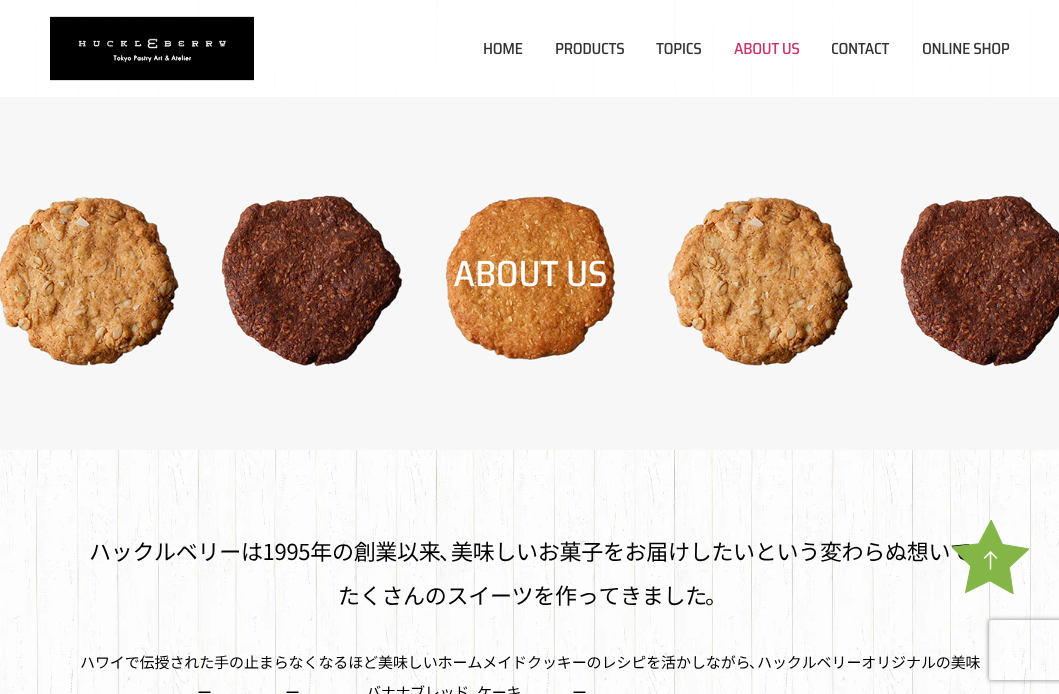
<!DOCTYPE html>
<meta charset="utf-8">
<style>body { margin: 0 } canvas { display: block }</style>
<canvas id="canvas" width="1059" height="694"></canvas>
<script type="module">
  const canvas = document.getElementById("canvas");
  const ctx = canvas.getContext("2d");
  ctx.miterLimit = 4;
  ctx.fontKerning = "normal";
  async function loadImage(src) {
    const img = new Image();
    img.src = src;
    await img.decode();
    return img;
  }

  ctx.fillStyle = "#ffffff";
  ctx.fillRect(0, 0, 1059, 694);
  ctx.drawImage(await loadImage("img1.png"), 0, 0, 1059, 694);
  ctx.fillStyle = "rgba(255, 255, 255, 0.9)";
  ctx.fillRect(0, 0, 1059, 97);
  ctx.drawImage(await loadImage("img2.png"), 50, 16, 204, 65);
  ctx.drawImage(await loadImage("img3.png"), 484, 42, 39, 13);
  ctx.drawImage(await loadImage("img4.png"), 556, 42, 68, 13);
  ctx.drawImage(await loadImage("img5.png"), 656, 42, 45, 13);
  ctx.drawImage(await loadImage("img6.png"), 734, 42, 66, 13);
  ctx.drawImage(await loadImage("img7.png"), 831, 42, 59, 13);
  ctx.drawImage(await loadImage("img8.png"), 922, 42, 88, 13);
  ctx.drawImage(await loadImage("img9.png"), 0, 97, 1059, 353);
  ctx.letterSpacing = "-0.3px";
  ctx.font = "22px Noto Sans JP";
  ctx.fillStyle = "#000000";
  ctx.fillText("ハックルベリーは1995年の創業以来", 89, 560);
  ctx.font = "22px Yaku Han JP";
  ctx.fillText("、", 439, 560);
  ctx.font = "22px Noto Sans JP";
  ctx.fillText("美味しいお菓子をお届けしたいという変わらぬ想いで", 451, 560);
  ctx.fillText("たくさんのスイーツを作ってきました", 338, 604);
  ctx.font = "22px Yaku Han JP";
  ctx.fillText("。", 705, 604);
  ctx.letterSpacing = "-0.1px";
  ctx.font = "15px Noto Sans JP";
  ctx.fillText("ハワイで伝授された手の止まらなくなるほど美味しいホームメイドクッキーのレシピを活かしながら", 80, 668);
  ctx.font = "15px Yaku Han JP";
  ctx.fillText("、", 749, 668);
  ctx.font = "15px Noto Sans JP";
  ctx.fillText("ハックルベリーオリジナルの美味", 757, 668);
  ctx.letterSpacing = "-0.3px";
  ctx.fillText("ー", 197, 698);
  ctx.fillText("ー", 285, 698);
  ctx.fillText("バナナブレッド", 366, 698);
  ctx.fillText("ケーキ", 477, 698);
  ctx.fillText("ー", 572, 698);
  ctx.drawImage(await loadImage("img10.png"), 952, 520, 77, 74);
  ctx.save();
  ctx.beginPath();
  ctx.moveTo(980, 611);
  ctx.lineTo(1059, 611);
  ctx.lineTo(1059, 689);
  ctx.lineTo(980, 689);
  ctx.closePath();
  ctx.moveTo(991, 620);
  ctx.lineTo(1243, 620);
  ctx.bezierCurveTo(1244, 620, 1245, 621, 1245, 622);
  ctx.lineTo(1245, 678);
  ctx.bezierCurveTo(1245, 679, 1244, 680, 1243, 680);
  ctx.lineTo(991, 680);
  ctx.bezierCurveTo(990, 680, 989, 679, 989, 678);
  ctx.lineTo(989, 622);
  ctx.bezierCurveTo(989, 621, 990, 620, 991, 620);
  ctx.closePath();
  ctx.clip("evenodd");
  ctx.fillStyle = "#808080";
  ctx.filter = "blur(2.5px)";
  ctx.beginPath();
  ctx.roundRect(989, 620, 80, 60, 2);
  ctx.fill();
  ctx.filter = "none";
  ctx.restore();
</script>
